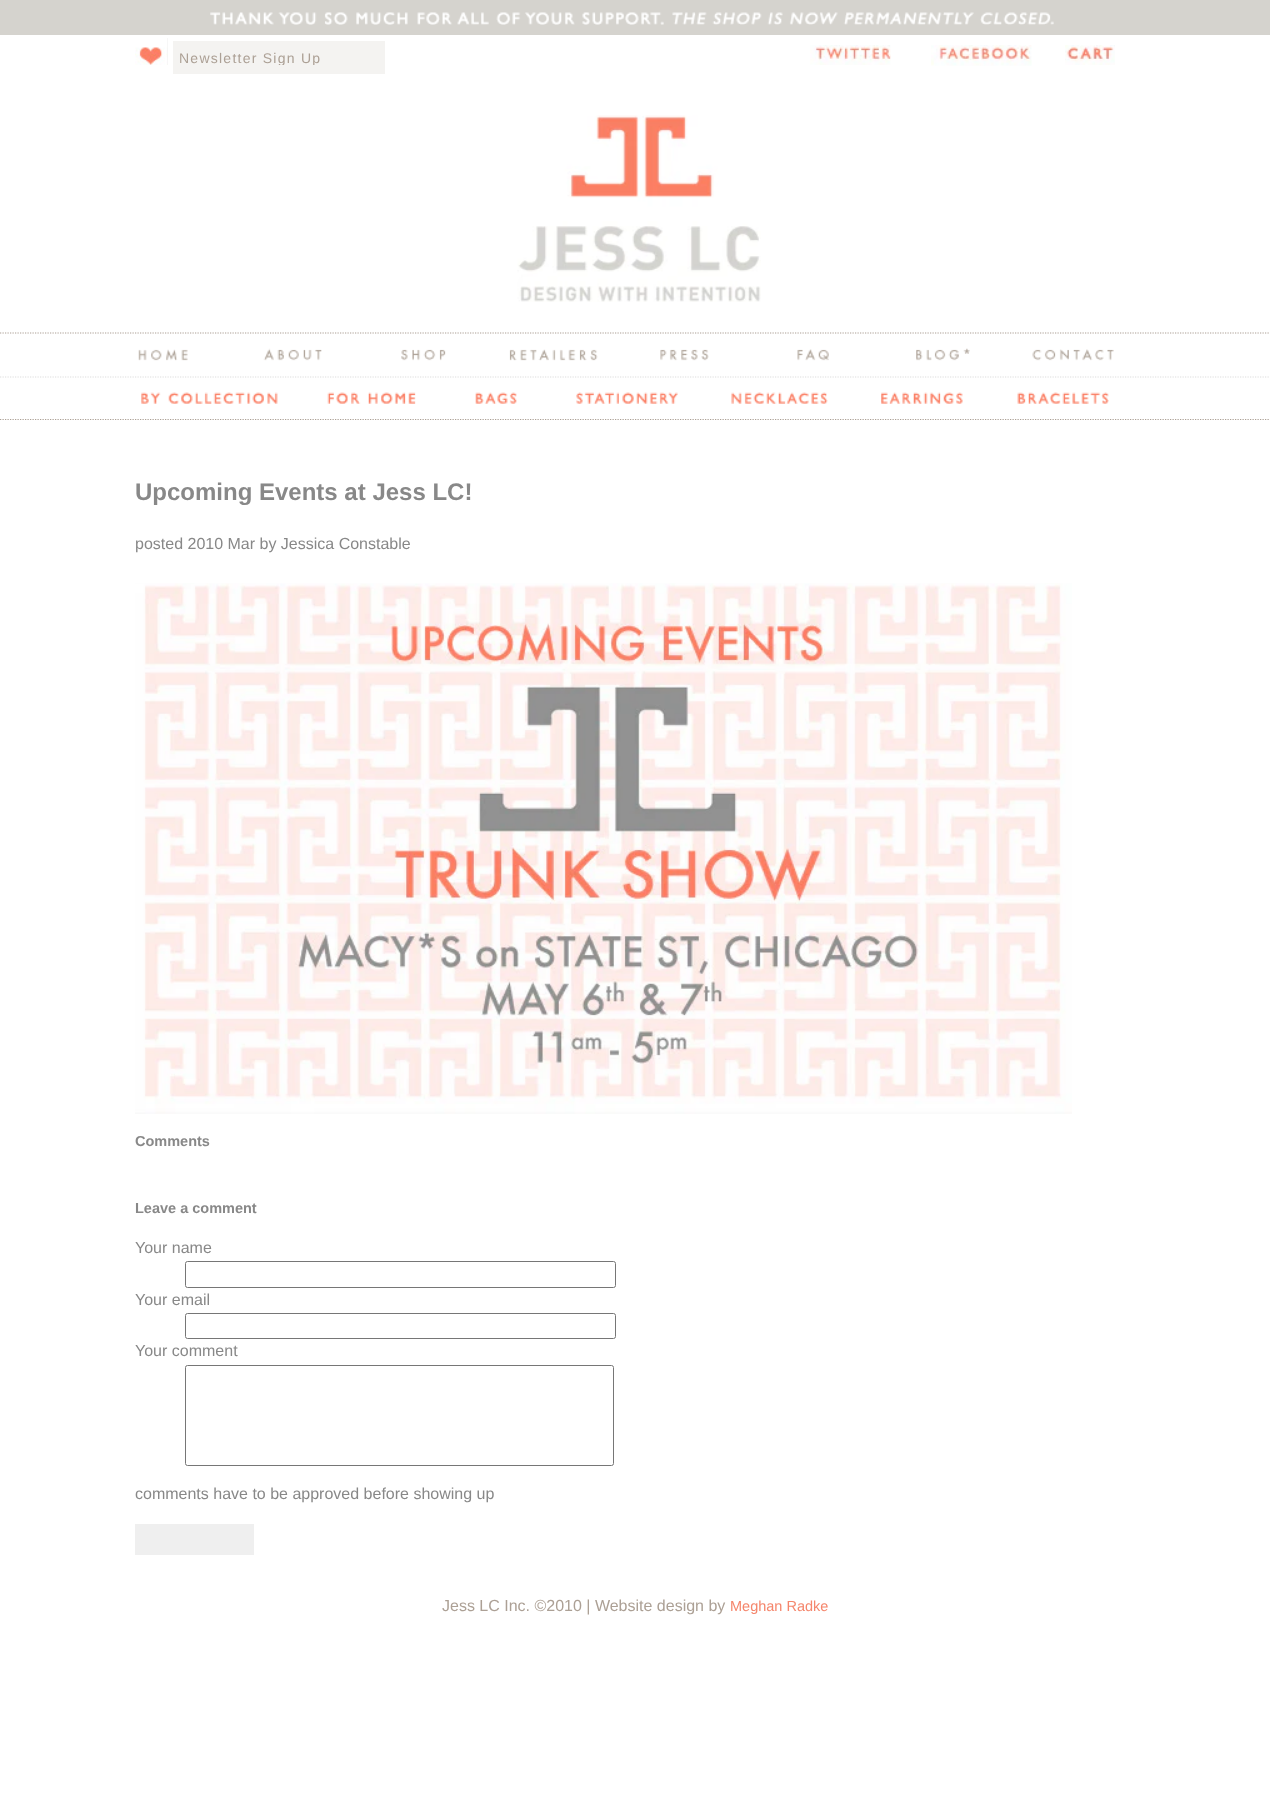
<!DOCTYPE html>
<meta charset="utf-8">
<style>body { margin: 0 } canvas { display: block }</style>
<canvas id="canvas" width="1270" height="1797"></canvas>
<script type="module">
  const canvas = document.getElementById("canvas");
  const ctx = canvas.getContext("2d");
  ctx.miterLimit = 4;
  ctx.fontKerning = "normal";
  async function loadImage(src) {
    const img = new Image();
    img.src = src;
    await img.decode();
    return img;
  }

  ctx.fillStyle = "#ffffff";
  ctx.fillRect(0, 0, 1270, 1797);
  ctx.fillStyle = "#d5d3ce";
  ctx.fillRect(0, 0, 1270, 35);
  ctx.drawImage(await loadImage("img1.png"), 210, 12, 844, 13);
  ctx.fillStyle = "#efefef";
  ctx.fillRect(167, 38, 1, 27);
  ctx.drawImage(await loadImage("img2.png"), 135, 38, 33, 27);
  ctx.fillStyle = "#f4f3f1";
  ctx.fillRect(173, 41, 212, 33);
  ctx.save();
  ctx.beginPath();
  ctx.rect(179, 50, 200, 15);
  ctx.clip();
  ctx.letterSpacing = "1.25px";
  ctx.font = "14px Liberation Sans";
  ctx.fillStyle = "#aca095";
  ctx.fillText("Newsletter Sign Up", 179, 63);
  ctx.restore();
  ctx.drawImage(await loadImage("img3.png"), 810, 45, 81, 20);
  ctx.drawImage(await loadImage("img4.png"), 931, 45, 101, 21);
  ctx.drawImage(await loadImage("img5.png"), 1065, 45, 50, 20);
  ctx.drawImage(await loadImage("img6.png"), 517, 115, 244, 187);
  ctx.beginPath();
  ctx.moveTo(0, 333);
  ctx.lineTo(1270, 333);
  ctx.strokeStyle = "#aca095";
  ctx.lineWidth = 1.2;
  ctx.setLineDash([1.25, 1.25]);
  ctx.stroke();
  ctx.drawImage(await loadImage("img7.png"), 138, 349, 50, 12);
  ctx.drawImage(await loadImage("img8.png"), 263, 348, 59, 13);
  ctx.drawImage(await loadImage("img9.png"), 401, 349, 45, 12);
  ctx.drawImage(await loadImage("img10.png"), 509, 349, 89, 12);
  ctx.drawImage(await loadImage("img11.png"), 660, 349, 49, 12);
  ctx.drawImage(await loadImage("img12.png"), 797, 349, 32, 12);
  ctx.drawImage(await loadImage("img13.png"), 916, 348, 54, 13);
  ctx.drawImage(await loadImage("img14.png"), 1032, 349, 82, 12);
  ctx.beginPath();
  ctx.moveTo(0, 377);
  ctx.lineTo(1270, 377);
  ctx.strokeStyle = "#dddddd";
  ctx.stroke();
  ctx.drawImage(await loadImage("img15.png"), 141, 392, 137, 12);
  ctx.drawImage(await loadImage("img16.png"), 327, 392, 89, 12);
  ctx.drawImage(await loadImage("img17.png"), 475, 392, 42, 12);
  ctx.drawImage(await loadImage("img18.png"), 576, 392, 102, 12);
  ctx.drawImage(await loadImage("img19.png"), 731, 392, 97, 12);
  ctx.drawImage(await loadImage("img20.png"), 881, 392, 82, 12);
  ctx.drawImage(await loadImage("img21.png"), 1017, 392, 92, 12);
  ctx.beginPath();
  ctx.moveTo(0, 419.5);
  ctx.lineTo(1270, 419.5);
  ctx.strokeStyle = "#aca095";
  ctx.stroke();
  ctx.font = "bold 24px Liberation Sans";
  ctx.fillStyle = "#888888";
  ctx.fillText("Upcoming Events at Jess LC!", 135, 500);
  ctx.font = "16px Liberation Sans";
  ctx.fillText("posted 2010 Mar by Jessica Constable", 135, 549);
  ctx.drawImage(await loadImage("img22.png"), 135, 583, 937, 531);
  ctx.font = "bold 14.5px Liberation Sans";
  ctx.fillText("Comments", 135, 1146);
  ctx.fillText("Leave a comment", 135, 1213);
  ctx.font = "16px Liberation Sans";
  ctx.fillText("Your name", 135, 1253);
  ctx.beginPath();
  ctx.roundRect(185.5, 1261.5, 430, 26, 2);
  ctx.strokeStyle = "#767676";
  ctx.lineWidth = 1;
  ctx.setLineDash([]);
  ctx.stroke();
  ctx.fillText("Your email", 135, 1305);
  ctx.beginPath();
  ctx.roundRect(185.5, 1313.5, 430, 25, 2);
  ctx.stroke();
  ctx.fillText("Your comment", 135, 1356);
  ctx.beginPath();
  ctx.roundRect(185.5, 1365.5, 428, 100, 2);
  ctx.stroke();
  ctx.fillText("comments have to be approved before showing up", 135, 1499);
  ctx.fillStyle = "#efefef";
  ctx.fillRect(135, 1524, 119, 31);
  ctx.fillStyle = "#aca095";
  ctx.fillText("Jess LC Inc. ©2010 | Website design by", 442, 1611);
  ctx.font = "14.5px Liberation Sans";
  ctx.fillStyle = "#f5866c";
  ctx.fillText("Meghan Radke", 730, 1611);
</script>
